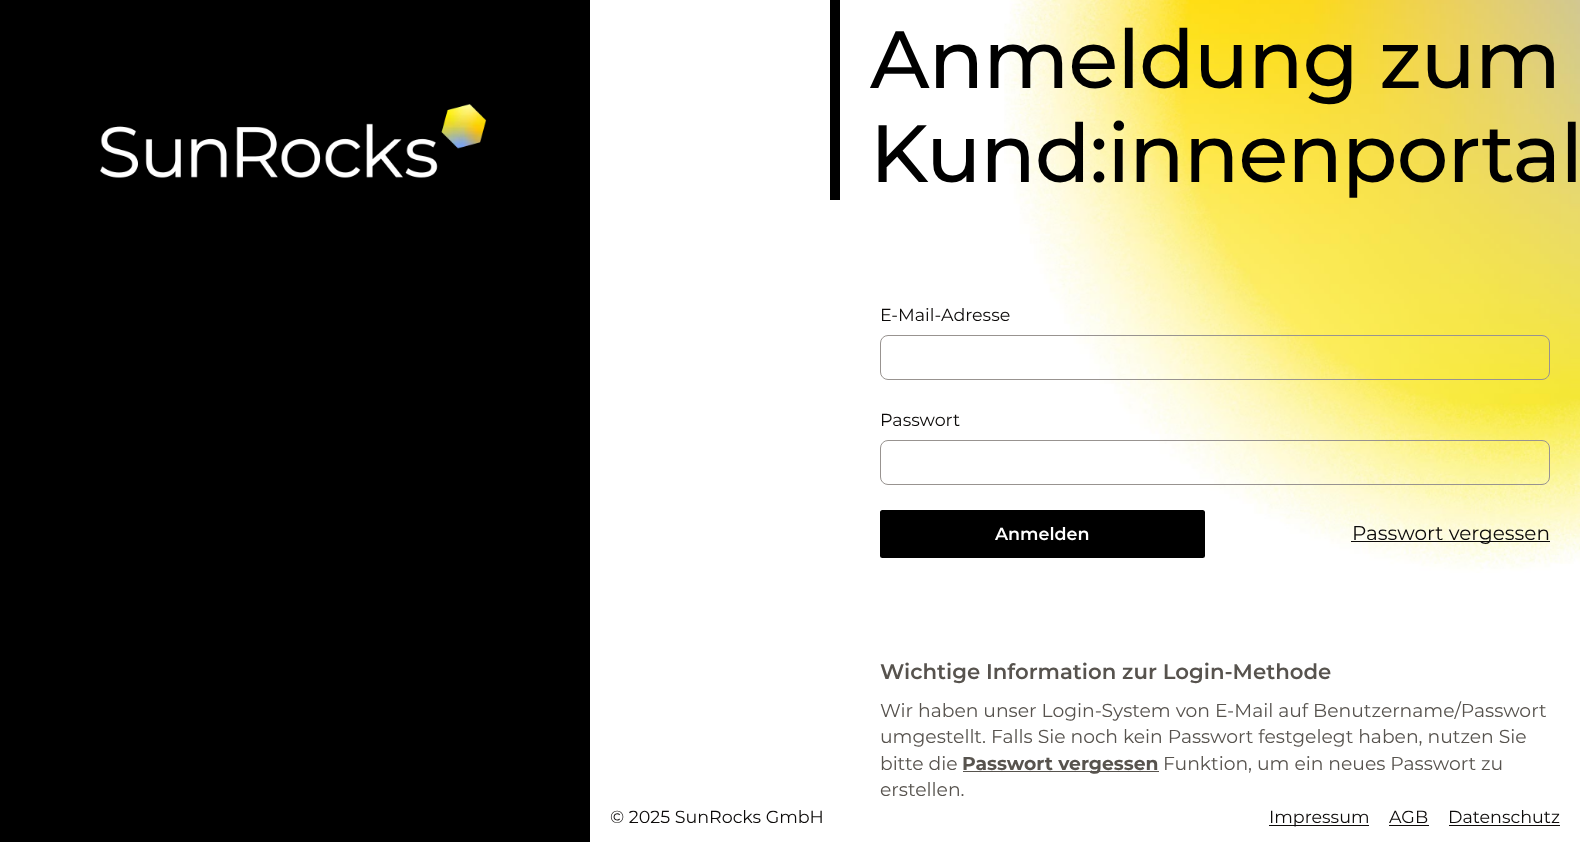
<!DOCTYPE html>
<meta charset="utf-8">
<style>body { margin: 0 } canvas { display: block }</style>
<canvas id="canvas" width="1580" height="842"></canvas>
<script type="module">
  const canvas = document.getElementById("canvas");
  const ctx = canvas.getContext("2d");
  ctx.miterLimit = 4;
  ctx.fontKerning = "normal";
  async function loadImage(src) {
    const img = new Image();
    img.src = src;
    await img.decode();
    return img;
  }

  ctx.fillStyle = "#ffffff";
  ctx.fillRect(0, 0, 1580, 842);
  ctx.drawImage(await loadImage("img1.png"), 1004, 0, 576, 573);
  ctx.fillStyle = "#000000";
  ctx.fillRect(0, 0, 590, 842);
  ctx.drawImage(await loadImage("img2.png"), 100, 104, 387, 74);
  ctx.fillRect(830, 0, 10, 200);
  ctx.letterSpacing = "-0.75px";
  ctx.font = "500 81.25px Montserrat";
  ctx.fillText("Anmeldung zum", 870, 88);
  ctx.fillText("Kund:innenportal", 870, 182);
  ctx.letterSpacing = "0px";
  ctx.font = "17.5px Montserrat";
  ctx.fillStyle = "#0c0a09";
  ctx.fillText("E-Mail-Adresse", 880, 321);
  ctx.beginPath();
  ctx.roundRect(880.5, 335.5, 669, 44, 7.5);
  ctx.strokeStyle = "#989390";
  ctx.stroke();
  ctx.fillText("Passwort", 880, 426);
  ctx.beginPath();
  ctx.roundRect(880.5, 440.5, 669, 44, 7.5);
  ctx.stroke();
  ctx.fillStyle = "#000000";
  ctx.beginPath();
  ctx.roundRect(881.5, 511.5, 322, 45, 1);
  ctx.fill();
  ctx.strokeStyle = "#000000";
  ctx.lineWidth = 3;
  ctx.stroke();
  ctx.font = "600 17.5px Montserrat";
  ctx.fillStyle = "#ffffff";
  ctx.fillText("Anmelden", 995, 540);
  ctx.fillStyle = "#0c0a09";
  ctx.fillRect(1351, 541, 199, 1);
  ctx.font = "20px Montserrat";
  ctx.fillText("Passwort vergessen", 1352, 540);
  ctx.font = "600 21.25px Montserrat";
  ctx.fillStyle = "#57534e";
  ctx.fillText("Wichtige Information zur Login-Methode", 880, 679);
  ctx.font = "18.75px Montserrat";
  ctx.fillText("Wir haben unser Login-System von E-Mail auf Benutzername/Passwort", 880, 717);
  ctx.fillText("umgestellt. Falls Sie noch kein Passwort festgelegt haben, nutzen Sie", 880, 743);
  ctx.fillText("bitte die", 880, 770);
  ctx.fillRect(963, 771, 196, 1);
  ctx.font = "bold 18.75px Montserrat";
  ctx.fillText("Passwort vergessen", 962, 770);
  ctx.font = "18.75px Montserrat";
  ctx.fillText("Funktion, um ein neues Passwort zu", 1163, 770);
  ctx.fillText("erstellen.", 880, 796);
  ctx.font = "17.5px Montserrat";
  ctx.fillStyle = "#0c0a09";
  ctx.fillText("© 2025 SunRocks GmbH", 610, 823);
  ctx.fillRect(1269, 825, 100, 1);
  ctx.fillText("Impressum", 1269, 823);
  ctx.fillText("AGB", 1389, 823);
  ctx.fillRect(1389, 825, 40, 1);
  ctx.fillText("Datenschutz", 1448, 823);
  ctx.fillRect(1449, 825, 111, 1);
</script>
